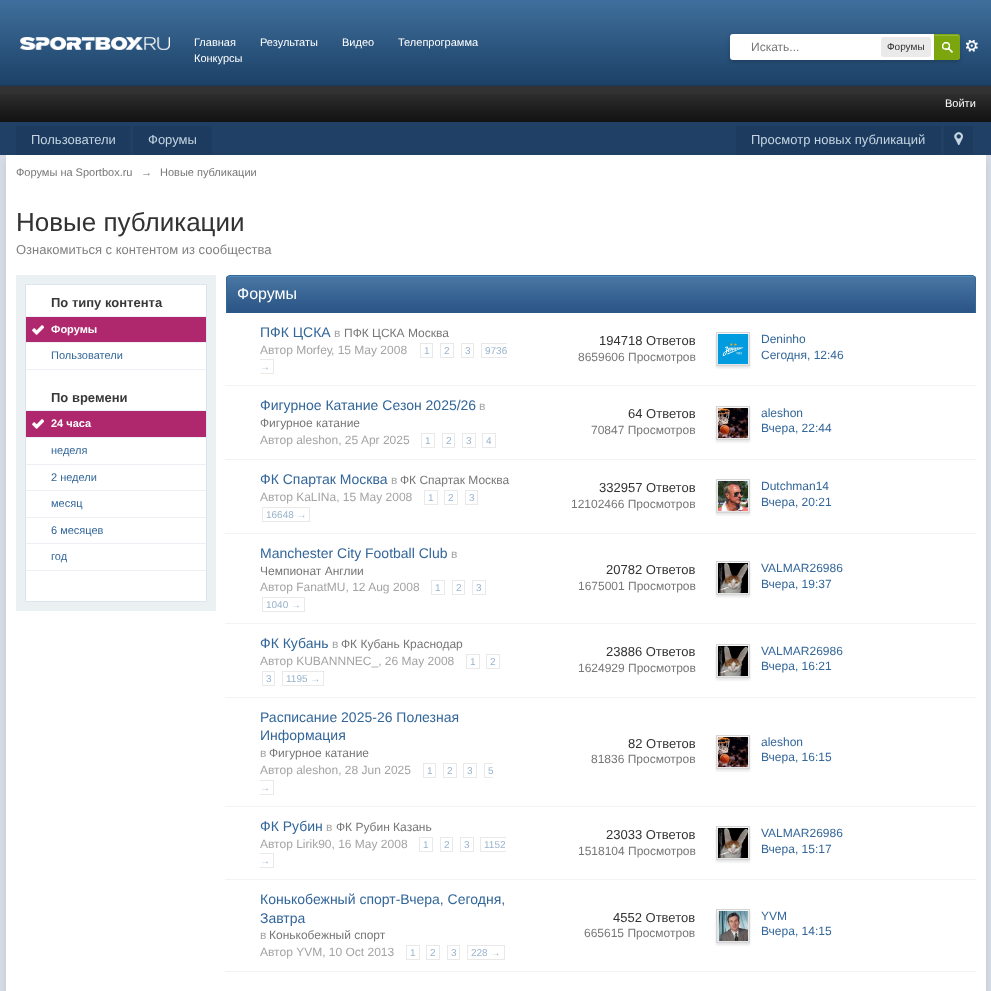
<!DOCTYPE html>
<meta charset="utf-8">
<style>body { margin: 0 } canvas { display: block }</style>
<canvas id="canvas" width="991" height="991"></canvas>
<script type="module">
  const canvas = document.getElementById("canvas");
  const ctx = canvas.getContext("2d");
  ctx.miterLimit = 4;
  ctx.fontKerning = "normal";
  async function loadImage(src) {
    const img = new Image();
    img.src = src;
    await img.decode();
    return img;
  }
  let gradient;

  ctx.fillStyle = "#d8dde8";
  ctx.fillRect(0, 0, 991, 991);
  gradient = ctx.createLinearGradient(500, 0, 500, 85);
  gradient.addColorStop(0, "#3f6f9c");
  gradient.addColorStop(1, "#1c4167");
  ctx.fillStyle = gradient;
  ctx.fillRect(0, 0, 991, 85);
  ctx.fillStyle = "#1b3759";
  ctx.fillRect(0, 85, 991, 1);
  ctx.drawImage(await loadImage("img1.png"), 20, 37, 150, 13);
  ctx.font = "11px Liberation Sans";
  ctx.fillStyle = "#ffffff";
  ctx.fillText("Главная", 194, 46);
  ctx.fillText("Результаты", 260, 46);
  ctx.fillText("Видео", 342, 46);
  ctx.fillText("Телепрограмма", 398, 46);
  ctx.fillText("Конкурсы", 194, 62);
  ctx.drawImage(await loadImage("img3.png"), 966, 40, 12, 12);
  ctx.fillStyle = "rgba(0, 0, 0, 0.2)";
  ctx.filter = "blur(2px)";
  ctx.beginPath();
  ctx.roundRect(730, 36, 230, 26, 4);
  ctx.fill();
  ctx.filter = "none";
  ctx.fillStyle = "#ffffff";
  ctx.beginPath();
  ctx.roundRect(730, 34, 230, 26, [3, 4, 4, 3]);
  ctx.fill();
  ctx.font = "12px Liberation Sans";
  ctx.fillStyle = "#777777";
  ctx.fillText("Искать...", 751, 51);
  ctx.fillStyle = "#eaeaea";
  ctx.beginPath();
  ctx.roundRect(881, 37, 50, 20, 3);
  ctx.fill();
  ctx.font = "10px Liberation Sans";
  ctx.fillStyle = "#323232";
  ctx.fillText("Форумы", 887, 50);
  ctx.fillStyle = "#7ba60d";
  ctx.beginPath();
  ctx.roundRect(934, 34, 26, 26, [0, 3, 3, 0]);
  ctx.fill();
  ctx.drawImage(await loadImage("img2.png"), 942, 42, 11, 11);
  ctx.fillStyle = "#95b83d";
  ctx.beginPath();
  ctx.moveTo(935, 36);
  ctx.lineTo(957, 36);
  ctx.bezierCurveTo(958, 36, 959, 37, 959, 38);
  ctx.lineTo(959, 37);
  ctx.bezierCurveTo(959, 36, 958, 35, 957, 35);
  ctx.lineTo(935, 35);
  ctx.closePath();
  ctx.fill();
  ctx.beginPath();
  ctx.roundRect(934.5, 34.5, 25, 25, [0, 2.5, 2.5, 0]);
  ctx.strokeStyle = "#7ba60d";
  ctx.stroke();
  ctx.fillStyle = "#323232";
  ctx.fillRect(0, 86, 991, 8);
  ctx.drawImage(await loadImage("img4.png"), 0, 94, 991, 28);
  ctx.font = "11px Liberation Sans";
  ctx.fillStyle = "#ffffff";
  ctx.fillText("Войти", 945, 107);
  ctx.fillStyle = "#204066";
  ctx.fillRect(0, 122, 991, 33);
  ctx.fillStyle = "rgba(0, 0, 0, 0.1)";
  ctx.filter = "blur(4.5px)";
  ctx.beginPath();
  ctx.rect(6, 160, 980, 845);
  ctx.fill();
  ctx.filter = "none";
  ctx.fillStyle = "#1c3b5f";
  ctx.fillRect(16, 126, 114, 29);
  ctx.font = "13px Liberation Sans";
  ctx.fillStyle = "#c5d5e2";
  ctx.fillText("Пользователи", 31, 144);
  ctx.fillStyle = "#1c3b5f";
  ctx.fillRect(133, 126, 79, 29);
  ctx.fillStyle = "#c5d5e2";
  ctx.fillText("Форумы", 148, 144);
  ctx.fillStyle = "#1c3b5f";
  ctx.fillRect(736, 126, 205, 29);
  ctx.fillStyle = "#c5d5e2";
  ctx.fillText("Просмотр новых публикаций", 751, 144);
  ctx.fillStyle = "#1c3b5f";
  ctx.fillRect(944, 126, 29, 29);
  ctx.drawImage(await loadImage("img5.png"), 954, 132, 9, 13);
  ctx.fillStyle = "#ffffff";
  ctx.fillRect(6, 155, 980, 836);
  ctx.font = "11px Liberation Sans";
  ctx.fillStyle = "#777777";
  ctx.fillText("Форумы на Sportbox.ru", 16, 176);
  ctx.fillText("→", 141, 176);
  ctx.fillText("Новые публикации", 160, 176);
  ctx.font = "26px Liberation Sans";
  ctx.fillStyle = "#323232";
  ctx.fillText("Новые публикации", 16, 231);
  ctx.font = "13px Liberation Sans";
  ctx.fillStyle = "#7f7f7f";
  ctx.fillText("Ознакомиться с контентом из сообщества", 16, 254);
  ctx.fillStyle = "#ebf0f3";
  ctx.fillRect(16, 275, 200, 336);
  ctx.fillStyle = "#ffffff";
  ctx.beginPath();
  ctx.rect(25.5, 284.5, 181, 317);
  ctx.fill();
  ctx.strokeStyle = "#dbe4ef";
  ctx.stroke();
  ctx.font = "bold 13px Liberation Sans";
  ctx.fillStyle = "#383838";
  ctx.fillText("По типу контента", 51, 307);
  ctx.fillStyle = "#edf1f5";
  ctx.fillRect(26, 316, 180, 1);
  ctx.fillRect(26, 342, 180, 1);
  ctx.fillStyle = "#af286d";
  ctx.fillRect(26, 317, 180, 25);
  ctx.drawImage(await loadImage("img6.png"), 32, 325, 12, 10);
  ctx.font = "bold 11px Liberation Sans";
  ctx.fillStyle = "#ffffff";
  ctx.fillText("Форумы", 51, 333);
  ctx.fillStyle = "#edf1f5";
  ctx.fillRect(26, 369, 180, 1);
  ctx.font = "11px Liberation Sans";
  ctx.fillStyle = "#336699";
  ctx.fillText("Пользователи", 51, 359);
  ctx.font = "bold 13px Liberation Sans";
  ctx.fillStyle = "#383838";
  ctx.fillText("По времени", 51, 402);
  ctx.fillStyle = "#edf1f5";
  ctx.fillRect(26, 410, 180, 1);
  ctx.fillRect(26, 437, 180, 1);
  ctx.fillStyle = "#af286d";
  ctx.fillRect(26, 411, 180, 26);
  ctx.drawImage(await loadImage("img6.png"), 32, 419, 12, 10);
  ctx.font = "bold 11px Liberation Sans";
  ctx.fillStyle = "#ffffff";
  ctx.fillText("24 часа", 51, 427);
  ctx.fillStyle = "#edf1f5";
  ctx.fillRect(26, 464, 180, 1);
  ctx.font = "11px Liberation Sans";
  ctx.fillStyle = "#336699";
  ctx.fillText("неделя", 51, 454);
  ctx.fillStyle = "#edf1f5";
  ctx.fillRect(26, 490, 180, 1);
  ctx.fillStyle = "#336699";
  ctx.fillText("2 недели", 51, 481);
  ctx.fillStyle = "#edf1f5";
  ctx.fillRect(26, 517, 180, 1);
  ctx.fillStyle = "#336699";
  ctx.fillText("месяц", 51, 507);
  ctx.fillStyle = "#edf1f5";
  ctx.fillRect(26, 543, 180, 1);
  ctx.fillStyle = "#336699";
  ctx.fillText("6 месяцев", 51, 534);
  ctx.fillStyle = "#edf1f5";
  ctx.fillRect(26, 570, 180, 1);
  ctx.fillStyle = "#336699";
  ctx.fillText("год", 51, 560);
  ctx.fillStyle = "#2c5687";
  ctx.fillRect(227, 311, 748, 2);
  ctx.drawImage(await loadImage("img7.png"), 226, 276, 750, 35);
  ctx.fillStyle = "#528cbc";
  ctx.beginPath();
  ctx.moveTo(230, 277);
  ctx.lineTo(972, 277);
  ctx.bezierCurveTo(974, 277, 975, 278, 975, 280);
  ctx.bezierCurveTo(975, 278, 974, 276, 972, 276);
  ctx.lineTo(230, 276);
  ctx.bezierCurveTo(228, 276, 227, 278, 227, 280);
  ctx.bezierCurveTo(227, 278, 228, 277, 230, 277);
  ctx.closePath();
  ctx.fill();
  ctx.fillStyle = "#316897";
  ctx.beginPath();
  ctx.moveTo(230, 275);
  ctx.lineTo(972, 275);
  ctx.bezierCurveTo(974, 275, 976, 277, 976, 279);
  ctx.lineTo(976, 313);
  ctx.lineTo(226, 313);
  ctx.lineTo(226, 279);
  ctx.bezierCurveTo(226, 277, 228, 275, 230, 275);
  ctx.closePath();
  ctx.moveTo(230, 276);
  ctx.lineTo(972, 276);
  ctx.bezierCurveTo(974, 276, 975, 277, 975, 279);
  ctx.lineTo(975, 313);
  ctx.lineTo(227, 313);
  ctx.lineTo(227, 279);
  ctx.bezierCurveTo(227, 277, 228, 276, 230, 276);
  ctx.closePath();
  ctx.fill("evenodd");
  ctx.font = "16px Liberation Sans";
  ctx.fillStyle = "#ffffff";
  ctx.fillText("Форумы", 237, 299);
  ctx.font = "14px Liberation Sans";
  ctx.fillStyle = "#336699";
  ctx.fillText("ПФК ЦСКА", 260, 337);
  ctx.font = "12px Liberation Sans";
  ctx.fillStyle = "#a4a4a4";
  ctx.fillText("в", 334, 337);
  ctx.fillStyle = "#777777";
  ctx.fillText("ПФК ЦСКА Москва", 344, 337);
  ctx.fillStyle = "#a4a4a4";
  ctx.fillText("Автор Morfey", 260, 354);
  ctx.fillText(", 15 May 2008", 331, 354);
  ctx.strokeStyle = "#e9e9e9";
  ctx.strokeRect(420.5, 343.5, 12, 14);
  ctx.font = "10px Liberation Sans";
  ctx.fillStyle = "#99b3cc";
  ctx.fillText("1", 424, 354);
  ctx.strokeRect(440.5, 343.5, 13, 14);
  ctx.fillText("2", 444, 354);
  ctx.strokeRect(461.5, 343.5, 12, 14);
  ctx.fillText("3", 465, 354);
  ctx.fillText("9736", 485, 354);
  ctx.fillStyle = "#e9e9e9";
  ctx.fillRect(481, 343, 26, 1);
  ctx.fillRect(481, 357, 26, 1);
  ctx.fillRect(481, 343, 1, 15);
  ctx.fillStyle = "#99b3cc";
  ctx.fillText("→", 260, 370);
  ctx.fillStyle = "#e9e9e9";
  ctx.fillRect(260, 359, 14, 1);
  ctx.fillRect(273, 359, 1, 15);
  ctx.fillRect(260, 373, 14, 1);
  ctx.font = "13px Liberation Sans";
  ctx.fillStyle = "#323232";
  ctx.fillText("194718 Ответов", 599, 345);
  ctx.font = "12px Liberation Sans";
  ctx.fillStyle = "#777777";
  ctx.fillText("8659606 Просмотров", 578, 361);
  ctx.fillStyle = "#f3f3f3";
  ctx.fillRect(225, 385, 751, 1);
  ctx.fillStyle = "rgba(0, 0, 0, 0.1)";
  ctx.filter = "blur(1px)";
  ctx.beginPath();
  ctx.rect(716, 334, 34, 34);
  ctx.fill();
  ctx.filter = "none";
  ctx.strokeStyle = "#d5d5d5";
  ctx.strokeRect(716.5, 332.5, 33, 33);
  ctx.drawImage(await loadImage("img8.png"), 718, 334, 30, 30);
  ctx.fillStyle = "#336699";
  ctx.fillText("Deninho", 761, 343);
  ctx.fillText("Сегодня, 12:46", 761, 359);
  ctx.font = "14px Liberation Sans";
  ctx.fillText("Фигурное Катание Сезон 2025/26", 260, 410);
  ctx.font = "12px Liberation Sans";
  ctx.fillStyle = "#a4a4a4";
  ctx.fillText("в", 479, 410);
  ctx.fillStyle = "#777777";
  ctx.fillText("Фигурное катание", 260, 427);
  ctx.fillStyle = "#a4a4a4";
  ctx.fillText("Автор aleshon, 25 Apr 2025", 260, 444);
  ctx.strokeStyle = "#e9e9e9";
  ctx.strokeRect(421.5, 433.5, 13, 14);
  ctx.font = "10px Liberation Sans";
  ctx.fillStyle = "#99b3cc";
  ctx.fillText("1", 425, 444);
  ctx.strokeRect(442.5, 433.5, 12, 14);
  ctx.fillText("2", 446, 444);
  ctx.strokeRect(462.5, 433.5, 13, 14);
  ctx.fillText("3", 466, 444);
  ctx.strokeRect(482.5, 433.5, 13, 14);
  ctx.fillText("4", 486, 444);
  ctx.font = "13px Liberation Sans";
  ctx.fillStyle = "#323232";
  ctx.fillText("64 Ответов", 628, 418);
  ctx.font = "12px Liberation Sans";
  ctx.fillStyle = "#777777";
  ctx.fillText("70847 Просмотров", 591, 434);
  ctx.fillStyle = "#f3f3f3";
  ctx.fillRect(225, 459, 751, 1);
  ctx.fillStyle = "rgba(0, 0, 0, 0.1)";
  ctx.filter = "blur(1px)";
  ctx.beginPath();
  ctx.rect(716, 408, 34, 34);
  ctx.fill();
  ctx.filter = "none";
  ctx.strokeStyle = "#d5d5d5";
  ctx.strokeRect(716.5, 406.5, 33, 33);
  ctx.drawImage(await loadImage("img9.png"), 718, 408, 30, 30);
  ctx.fillStyle = "#336699";
  ctx.fillText("aleshon", 761, 417);
  ctx.fillText("Вчера, 22:44", 761, 432);
  ctx.font = "14px Liberation Sans";
  ctx.fillText("ФК Спартак Москва", 260, 484);
  ctx.font = "12px Liberation Sans";
  ctx.fillStyle = "#a4a4a4";
  ctx.fillText("в", 391, 484);
  ctx.fillStyle = "#777777";
  ctx.fillText("ФК Спартак Москва", 400, 484);
  ctx.fillStyle = "#a4a4a4";
  ctx.fillText("Автор KaLINa, 15 May 2008", 260, 501);
  ctx.strokeStyle = "#e9e9e9";
  ctx.strokeRect(424.5, 490.5, 13, 14);
  ctx.font = "10px Liberation Sans";
  ctx.fillStyle = "#99b3cc";
  ctx.fillText("1", 428, 501);
  ctx.strokeRect(444.5, 490.5, 13, 14);
  ctx.fillText("2", 448, 501);
  ctx.strokeRect(465.5, 490.5, 12, 14);
  ctx.fillText("3", 469, 501);
  ctx.strokeRect(262.5, 507.5, 47, 14);
  ctx.fillText("16648 →", 266, 518);
  ctx.font = "13px Liberation Sans";
  ctx.fillStyle = "#323232";
  ctx.fillText("332957 Ответов", 599, 492);
  ctx.font = "12px Liberation Sans";
  ctx.fillStyle = "#777777";
  ctx.fillText("12102466 Просмотров", 571, 508);
  ctx.fillStyle = "#f3f3f3";
  ctx.fillRect(225, 533, 751, 1);
  ctx.fillStyle = "rgba(0, 0, 0, 0.1)";
  ctx.filter = "blur(1px)";
  ctx.beginPath();
  ctx.rect(716, 481, 34, 34);
  ctx.fill();
  ctx.filter = "none";
  ctx.strokeStyle = "#d5d5d5";
  ctx.strokeRect(716.5, 479.5, 33, 33);
  ctx.drawImage(await loadImage("img10.png"), 718, 481, 30, 30);
  ctx.fillStyle = "#336699";
  ctx.fillText("Dutchman14", 761, 490);
  ctx.fillText("Вчера, 20:21", 761, 506);
  ctx.font = "14px Liberation Sans";
  ctx.fillText("Manchester City Football Club", 260, 558);
  ctx.font = "12px Liberation Sans";
  ctx.fillStyle = "#a4a4a4";
  ctx.fillText("в", 451, 558);
  ctx.fillStyle = "#777777";
  ctx.fillText("Чемпионат Англии", 260, 575);
  ctx.fillStyle = "#a4a4a4";
  ctx.fillText("Автор FanatMU, 12 Aug 2008", 260, 591);
  ctx.strokeStyle = "#e9e9e9";
  ctx.strokeRect(431.5, 580.5, 13, 14);
  ctx.font = "10px Liberation Sans";
  ctx.fillStyle = "#99b3cc";
  ctx.fillText("1", 435, 591);
  ctx.strokeRect(452.5, 580.5, 12, 14);
  ctx.fillText("2", 456, 591);
  ctx.strokeRect(472.5, 580.5, 13, 14);
  ctx.fillText("3", 476, 591);
  ctx.strokeRect(262.5, 597.5, 42, 14);
  ctx.fillText("1040 →", 266, 608);
  ctx.font = "13px Liberation Sans";
  ctx.fillStyle = "#323232";
  ctx.fillText("20782 Ответов", 606, 574);
  ctx.font = "12px Liberation Sans";
  ctx.fillStyle = "#777777";
  ctx.fillText("1675001 Просмотров", 578, 590);
  ctx.fillStyle = "#f3f3f3";
  ctx.fillRect(225, 623, 751, 1);
  ctx.fillStyle = "rgba(0, 0, 0, 0.1)";
  ctx.filter = "blur(1px)";
  ctx.beginPath();
  ctx.rect(716, 563, 34, 34);
  ctx.fill();
  ctx.filter = "none";
  ctx.strokeStyle = "#d5d5d5";
  ctx.strokeRect(716.5, 561.5, 33, 33);
  ctx.drawImage(await loadImage("img11.png"), 718, 563, 30, 30);
  ctx.fillStyle = "#336699";
  ctx.fillText("VALMAR26986", 761, 572);
  ctx.fillText("Вчера, 19:37", 761, 588);
  ctx.font = "14px Liberation Sans";
  ctx.fillText("ФК Кубань", 260, 648);
  ctx.font = "12px Liberation Sans";
  ctx.fillStyle = "#a4a4a4";
  ctx.fillText("в", 332, 648);
  ctx.fillStyle = "#777777";
  ctx.fillText("ФК Кубань Краснодар", 341, 648);
  ctx.fillStyle = "#a4a4a4";
  ctx.fillText("Автор KUBANNNEC_, 26 May 2008", 260, 665);
  ctx.strokeStyle = "#e9e9e9";
  ctx.strokeRect(466.5, 654.5, 13, 14);
  ctx.font = "10px Liberation Sans";
  ctx.fillStyle = "#99b3cc";
  ctx.fillText("1", 470, 665);
  ctx.strokeRect(486.5, 654.5, 13, 14);
  ctx.fillText("2", 490, 665);
  ctx.strokeRect(262.5, 671.5, 12, 14);
  ctx.fillText("3", 266, 682);
  ctx.strokeRect(282.5, 671.5, 41, 14);
  ctx.fillText("1195 →", 286, 682);
  ctx.font = "13px Liberation Sans";
  ctx.fillStyle = "#323232";
  ctx.fillText("23886 Ответов", 606, 656);
  ctx.font = "12px Liberation Sans";
  ctx.fillStyle = "#777777";
  ctx.fillText("1624929 Просмотров", 578, 672);
  ctx.fillStyle = "#f3f3f3";
  ctx.fillRect(225, 697, 751, 1);
  ctx.fillStyle = "rgba(0, 0, 0, 0.1)";
  ctx.filter = "blur(1px)";
  ctx.beginPath();
  ctx.rect(716, 646, 34, 34);
  ctx.fill();
  ctx.filter = "none";
  ctx.strokeStyle = "#d5d5d5";
  ctx.strokeRect(716.5, 644.5, 33, 33);
  ctx.drawImage(await loadImage("img12.png"), 718, 646, 30, 30);
  ctx.fillStyle = "#336699";
  ctx.fillText("VALMAR26986", 761, 655);
  ctx.fillText("Вчера, 16:21", 761, 670);
  ctx.font = "14px Liberation Sans";
  ctx.fillText("Расписание 2025-26 Полезная", 260, 722);
  ctx.fillText("Информация", 260, 740);
  ctx.font = "12px Liberation Sans";
  ctx.fillStyle = "#a4a4a4";
  ctx.fillText("в", 260, 757);
  ctx.fillStyle = "#777777";
  ctx.fillText("Фигурное катание", 269, 757);
  ctx.fillStyle = "#a4a4a4";
  ctx.fillText("Автор aleshon, 28 Jun 2025", 260, 774);
  ctx.strokeStyle = "#e9e9e9";
  ctx.strokeRect(423.5, 763.5, 12, 14);
  ctx.font = "10px Liberation Sans";
  ctx.fillStyle = "#99b3cc";
  ctx.fillText("1", 427, 774);
  ctx.strokeRect(443.5, 763.5, 13, 14);
  ctx.fillText("2", 447, 774);
  ctx.strokeRect(463.5, 763.5, 13, 14);
  ctx.fillText("3", 467, 774);
  ctx.fillText("5", 488, 774);
  ctx.fillStyle = "#e9e9e9";
  ctx.fillRect(484, 763, 9, 1);
  ctx.fillRect(484, 777, 9, 1);
  ctx.fillRect(484, 763, 1, 15);
  ctx.fillStyle = "#99b3cc";
  ctx.fillText("→", 260, 791);
  ctx.fillStyle = "#e9e9e9";
  ctx.fillRect(260, 780, 14, 1);
  ctx.fillRect(273, 780, 1, 15);
  ctx.fillRect(260, 794, 14, 1);
  ctx.font = "13px Liberation Sans";
  ctx.fillStyle = "#323232";
  ctx.fillText("82 Ответов", 628, 748);
  ctx.font = "12px Liberation Sans";
  ctx.fillStyle = "#777777";
  ctx.fillText("81836 Просмотров", 591, 763);
  ctx.fillStyle = "#f3f3f3";
  ctx.fillRect(225, 806, 751, 1);
  ctx.fillStyle = "rgba(0, 0, 0, 0.1)";
  ctx.filter = "blur(1px)";
  ctx.beginPath();
  ctx.rect(716, 737, 34, 34);
  ctx.fill();
  ctx.filter = "none";
  ctx.strokeStyle = "#d5d5d5";
  ctx.strokeRect(716.5, 735.5, 33, 33);
  ctx.drawImage(await loadImage("img13.png"), 718, 737, 30, 30);
  ctx.fillStyle = "#336699";
  ctx.fillText("aleshon", 761, 746);
  ctx.fillText("Вчера, 16:15", 761, 761);
  ctx.font = "14px Liberation Sans";
  ctx.fillText("ФК Рубин", 260, 831);
  ctx.font = "12px Liberation Sans";
  ctx.fillStyle = "#a4a4a4";
  ctx.fillText("в", 326, 831);
  ctx.fillStyle = "#777777";
  ctx.fillText("ФК Рубин Казань", 336, 831);
  ctx.fillStyle = "#a4a4a4";
  ctx.fillText("Автор Lirik90, 16 May 2008", 260, 848);
  ctx.strokeStyle = "#e9e9e9";
  ctx.strokeRect(419.5, 837.5, 13, 14);
  ctx.font = "10px Liberation Sans";
  ctx.fillStyle = "#99b3cc";
  ctx.fillText("1", 423, 848);
  ctx.strokeRect(440.5, 837.5, 12, 14);
  ctx.fillText("2", 444, 848);
  ctx.strokeRect(460.5, 837.5, 13, 14);
  ctx.fillText("3", 464, 848);
  ctx.fillText("1152", 484, 848);
  ctx.fillStyle = "#e9e9e9";
  ctx.fillRect(480, 837, 26, 1);
  ctx.fillRect(480, 851, 26, 1);
  ctx.fillRect(480, 837, 1, 15);
  ctx.fillStyle = "#99b3cc";
  ctx.fillText("→", 260, 864);
  ctx.fillStyle = "#e9e9e9";
  ctx.fillRect(260, 853, 14, 1);
  ctx.fillRect(273, 853, 1, 15);
  ctx.fillRect(260, 867, 14, 1);
  ctx.font = "13px Liberation Sans";
  ctx.fillStyle = "#323232";
  ctx.fillText("23033 Ответов", 606, 839);
  ctx.font = "12px Liberation Sans";
  ctx.fillStyle = "#777777";
  ctx.fillText("1518104 Просмотров", 578, 855);
  ctx.fillStyle = "#f3f3f3";
  ctx.fillRect(225, 879, 751, 1);
  ctx.fillStyle = "rgba(0, 0, 0, 0.1)";
  ctx.filter = "blur(1px)";
  ctx.beginPath();
  ctx.rect(716, 828, 34, 34);
  ctx.fill();
  ctx.filter = "none";
  ctx.strokeStyle = "#d5d5d5";
  ctx.strokeRect(716.5, 826.5, 33, 33);
  ctx.drawImage(await loadImage("img12.png"), 718, 828, 30, 30);
  ctx.fillStyle = "#336699";
  ctx.fillText("VALMAR26986", 761, 837);
  ctx.fillText("Вчера, 15:17", 761, 853);
  ctx.font = "14px Liberation Sans";
  ctx.fillText("Конькобежный спорт-Вчера, Сегодня,", 260, 904);
  ctx.fillText("Завтра", 260, 923);
  ctx.font = "12px Liberation Sans";
  ctx.fillStyle = "#a4a4a4";
  ctx.fillText("в", 260, 939);
  ctx.fillStyle = "#777777";
  ctx.fillText("Конькобежный спорт", 269, 939);
  ctx.fillStyle = "#a4a4a4";
  ctx.fillText("Автор YVM, 10 Oct 2013", 260, 956);
  ctx.strokeStyle = "#e9e9e9";
  ctx.strokeRect(406.5, 945.5, 13, 14);
  ctx.font = "10px Liberation Sans";
  ctx.fillStyle = "#99b3cc";
  ctx.fillText("1", 410, 956);
  ctx.strokeRect(426.5, 945.5, 13, 14);
  ctx.fillText("2", 430, 956);
  ctx.strokeRect(447.5, 945.5, 12, 14);
  ctx.fillText("3", 451, 956);
  ctx.strokeRect(467.5, 945.5, 37, 14);
  ctx.fillText("228 →", 471, 956);
  ctx.font = "13px Liberation Sans";
  ctx.fillStyle = "#323232";
  ctx.fillText("4552 Ответов", 613, 922);
  ctx.font = "12px Liberation Sans";
  ctx.fillStyle = "#777777";
  ctx.fillText("665615 Просмотров", 584, 937);
  ctx.fillStyle = "#f3f3f3";
  ctx.fillRect(225, 971, 751, 1);
  ctx.fillStyle = "rgba(0, 0, 0, 0.1)";
  ctx.filter = "blur(1px)";
  ctx.beginPath();
  ctx.rect(716, 911, 34, 34);
  ctx.fill();
  ctx.filter = "none";
  ctx.strokeStyle = "#d5d5d5";
  ctx.strokeRect(716.5, 909.5, 33, 33);
  ctx.drawImage(await loadImage("img14.png"), 718, 911, 30, 30);
  ctx.fillStyle = "#336699";
  ctx.fillText("YVM", 761, 920);
  ctx.fillText("Вчера, 14:15", 761, 935);
</script>
